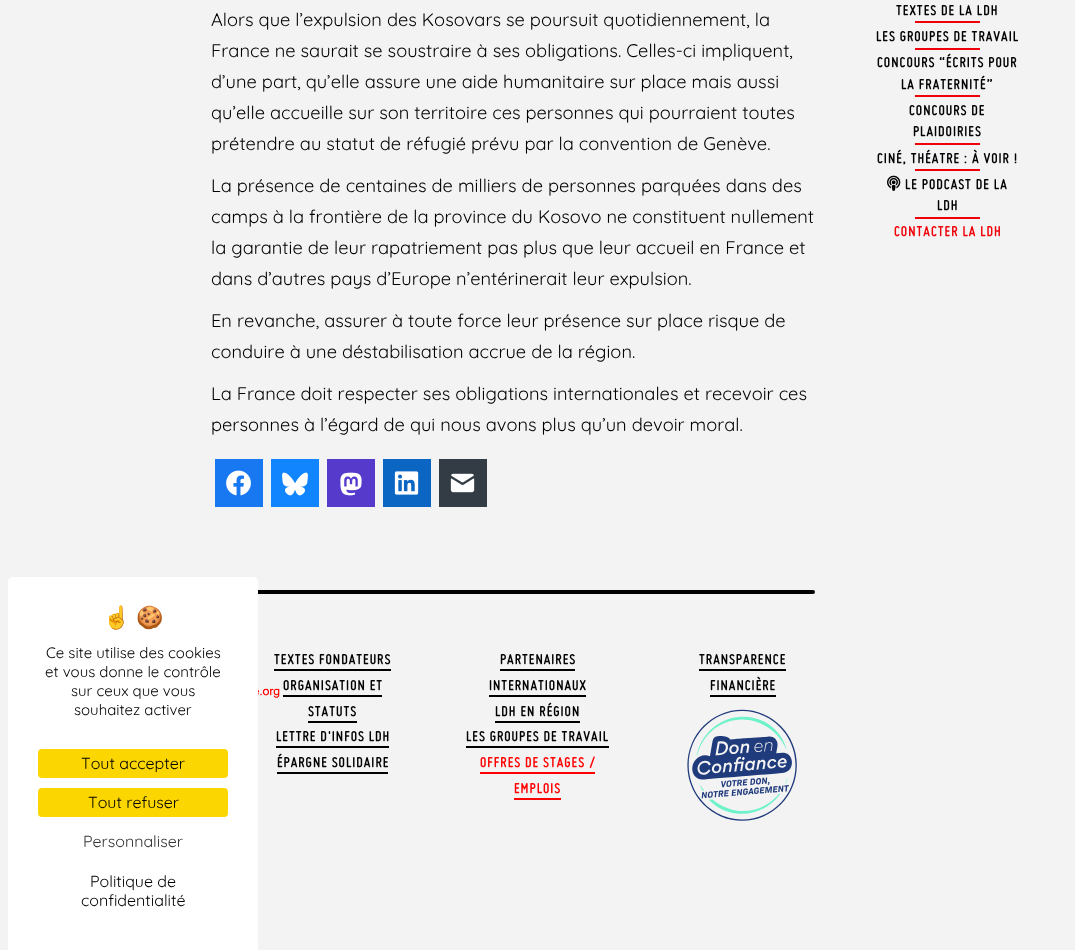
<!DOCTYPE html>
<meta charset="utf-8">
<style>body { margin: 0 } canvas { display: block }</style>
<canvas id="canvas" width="1075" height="950"></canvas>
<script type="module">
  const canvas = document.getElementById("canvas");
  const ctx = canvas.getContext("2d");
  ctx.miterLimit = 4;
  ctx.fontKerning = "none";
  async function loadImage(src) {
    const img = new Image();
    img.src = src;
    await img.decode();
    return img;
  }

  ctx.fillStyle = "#f3f3f3";
  ctx.fillRect(0, 0, 1075, 950);
  ctx.fillStyle = "#000000";
  ctx.beginPath();
  ctx.roundRect(55, 590, 760, 4, 2);
  ctx.fill();
  ctx.fillStyle = "#ffffff";
  ctx.beginPath();
  ctx.roundRect(8, 577, 250, 373, [5, 5, 0, 0]);
  ctx.fill();
  ctx.font = "22px Noto Color Emoji";
  ctx.fillStyle = "#000000";
  ctx.fillText("☝️", 103, 625);
  ctx.fillText("🍪", 136, 625);
  ctx.font = "300 15px Quicksand";
  ctx.fillText("Ce site utilise des cookies", 46, 658);
  ctx.fillText("et vous donne le contrôle", 45, 677);
  ctx.fillText("sur ceux que vous", 71, 696);
  ctx.fillText("souhaitez activer", 74, 715);
  ctx.fillStyle = "#fbd600";
  ctx.beginPath();
  ctx.roundRect(38, 749, 190, 29, 4);
  ctx.fill();
  ctx.font = "300 16px Quicksand";
  ctx.fillStyle = "#000000";
  ctx.fillText("Tout accepter", 81, 769);
  ctx.fillStyle = "#fbd600";
  ctx.beginPath();
  ctx.roundRect(38, 788, 190, 29, 4);
  ctx.fill();
  ctx.fillStyle = "#000000";
  ctx.fillText("Tout refuser", 88, 808);
  ctx.fillStyle = "#333333";
  ctx.fillText("Personnaliser", 83, 847);
  ctx.fillStyle = "#000000";
  ctx.fillText("Politique de", 90, 887);
  ctx.fillText("confidentialité", 81, 906);
  ctx.font = "300 18.25px Quicksand";
  ctx.fillText("Alors que l’expulsion des Kosovars se poursuit quotidiennement, la", 211, 26);
  ctx.fillText("France ne saurait se soustraire à ses obligations. Celles-ci impliquent,", 211, 57);
  ctx.fillText("d’une part, qu’elle assure une aide humanitaire sur place mais aussi", 211, 88);
  ctx.fillText("qu’elle accueille sur son territoire ces personnes qui pourraient toutes", 211, 119);
  ctx.fillText("prétendre au statut de réfugié prévu par la convention de Genève.", 211, 150);
  ctx.fillText("La présence de centaines de milliers de personnes parquées dans des", 211, 192);
  ctx.fillText("camps à la frontière de la province du Kosovo ne constituent nullement", 211, 223);
  ctx.fillText("la garantie de leur rapatriement pas plus que leur accueil en France et", 211, 254);
  ctx.fillText("dans d’autres pays d’Europe n’entérinerait leur expulsion.", 211, 285);
  ctx.fillText("En revanche, assurer à toute force leur présence sur place risque de", 211, 327);
  ctx.fillText("conduire à une déstabilisation accrue de la région.", 211, 358);
  ctx.fillText("La France doit respecter ses obligations internationales et recevoir ces", 211, 400);
  ctx.fillText("personnes à l’égard de qui nous avons plus qu’un devoir moral.", 211, 431);
  ctx.fillStyle = "#1778f2";
  ctx.fillRect(215, 459, 48, 48);
  ctx.drawImage(await loadImage("img1.png"), 226, 470, 25, 26);
  ctx.fillStyle = "#1185fe";
  ctx.fillRect(271, 459, 48, 48);
  ctx.drawImage(await loadImage("img2.png"), 282, 472, 26, 24);
  ctx.fillStyle = "#563acc";
  ctx.fillRect(327, 459, 48, 48);
  ctx.drawImage(await loadImage("img3.png"), 340, 472, 22, 24);
  ctx.fillStyle = "#0a66c2";
  ctx.fillRect(383, 459, 48, 48);
  ctx.drawImage(await loadImage("img4.png"), 394, 471, 25, 24);
  ctx.fillStyle = "#333c45";
  ctx.fillRect(439, 459, 48, 48);
  ctx.drawImage(await loadImage("img5.png"), 450, 473, 25, 20);
  ctx.letterSpacing = "1px";
  ctx.font = "italic bold 15.25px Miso";
  ctx.fillStyle = "#000000";
  ctx.fillText("TEXTES FONDATEURS", 274, 664);
  ctx.fillRect(274, 669, 117, 2);
  ctx.fillText("ORGANISATION ET", 283, 690);
  ctx.fillRect(283, 695, 99, 2);
  ctx.fillText("STATUTS", 308, 716);
  ctx.fillRect(308, 721, 49, 2);
  ctx.fillText("LETTRE D'INFOS LDH", 276, 741);
  ctx.fillRect(276, 746, 113, 2);
  ctx.fillText("ÉPARGNE SOLIDAIRE", 277, 767);
  ctx.fillRect(277, 772, 111, 2);
  ctx.fillText("PARTENAIRES", 500, 664);
  ctx.fillRect(500, 669, 75, 2);
  ctx.fillText("INTERNATIONAUX", 489, 690);
  ctx.fillRect(489, 695, 97, 2);
  ctx.fillText("LDH EN RÉGION", 495, 716);
  ctx.fillRect(495, 721, 85, 2);
  ctx.fillText("LES GROUPES DE TRAVAIL", 466, 741);
  ctx.fillRect(466, 746, 143, 2);
  ctx.fillStyle = "#ff0000";
  ctx.fillText("OFFRES DE STAGES /", 480, 767);
  ctx.fillRect(480, 772, 115, 2);
  ctx.fillText("EMPLOIS", 514, 793);
  ctx.fillRect(514, 798, 47, 2);
  ctx.fillStyle = "#000000";
  ctx.fillText("TRANSPARENCE", 699, 664);
  ctx.fillRect(699, 669, 87, 2);
  ctx.fillText("FINANCIÈRE", 710, 690);
  ctx.fillRect(710, 695, 66, 2);
  ctx.drawImage(await loadImage("img6.png"), 687, 709, 110, 112);
  ctx.drawImage(await loadImage("img7.png"), 258, 688, 22, 10);
  ctx.fillText("TEXTES DE LA LDH", 896, 15);
  ctx.fillStyle = "#f0000a";
  ctx.fillRect(915, 21, 65, 2);
  ctx.fillStyle = "#000000";
  ctx.fillText("LES GROUPES DE TRAVAIL", 876, 41);
  ctx.fillStyle = "#f0000a";
  ctx.fillRect(915, 48, 65, 2);
  ctx.fillStyle = "#000000";
  ctx.fillText("CONCOURS “ÉCRITS POUR", 877, 67);
  ctx.fillText("LA FRATERNITÉ”", 901, 89);
  ctx.fillStyle = "#f0000a";
  ctx.fillRect(915, 95, 65, 2);
  ctx.fillStyle = "#000000";
  ctx.fillText("CONCOURS DE", 909, 115);
  ctx.fillText("PLAIDOIRIES", 913, 136);
  ctx.fillStyle = "#f0000a";
  ctx.fillRect(915, 143, 65, 2);
  ctx.fillStyle = "#000000";
  ctx.fillText("CINÉ, THÉATRE : À VOIR !", 877, 163);
  ctx.fillStyle = "#f0000a";
  ctx.fillRect(915, 169, 65, 2);
  ctx.drawImage(await loadImage("img8.png"), 887, 175, 14, 16);
  ctx.fillStyle = "#000000";
  ctx.fillText("LE PODCAST DE LA", 905, 189);
  ctx.fillText("LDH", 937, 210);
  ctx.fillStyle = "#f0000a";
  ctx.fillRect(915, 217, 65, 2);
  ctx.fillText("CONTACTER LA LDH", 894, 236);
</script>
